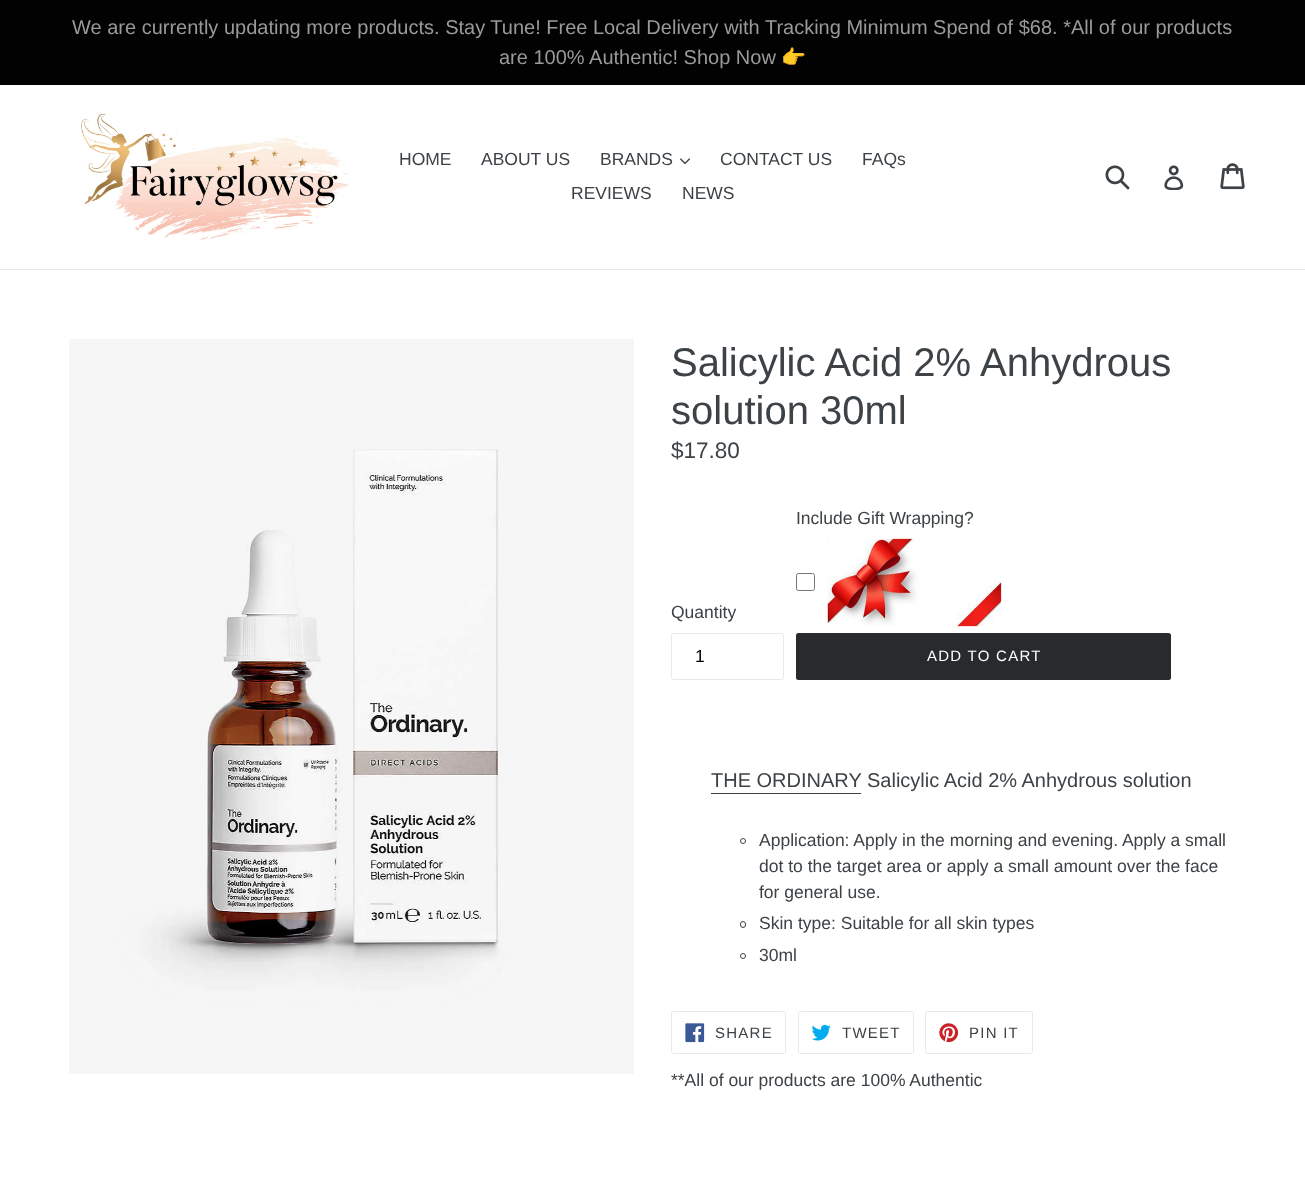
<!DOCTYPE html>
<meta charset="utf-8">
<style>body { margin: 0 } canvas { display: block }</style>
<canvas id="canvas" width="1305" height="1184"></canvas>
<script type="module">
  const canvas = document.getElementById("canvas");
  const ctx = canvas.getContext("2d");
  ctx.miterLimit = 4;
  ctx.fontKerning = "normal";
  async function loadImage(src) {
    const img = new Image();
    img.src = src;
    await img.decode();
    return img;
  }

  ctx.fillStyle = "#ffffff";
  ctx.fillRect(0, 0, 1305, 1184);
  ctx.fillStyle = "#020203";
  ctx.fillRect(0, 0, 1305, 85);
  ctx.font = "20px Liberation Sans";
  ctx.fillStyle = "#9a9a9a";
  ctx.fillText("We are currently updating more products. Stay Tune! Free Local Delivery with Tracking Minimum Spend of $68. *All of our products", 72, 34);
  ctx.fillText("are 100% Authentic! Shop Now", 499, 64);
  ctx.font = "20px Noto Color Emoji";
  ctx.fillText("👉", 781, 64);
  ctx.fillStyle = "#e8e9eb";
  ctx.fillRect(0, 269, 1305, 1);
  ctx.drawImage(await loadImage("img1.png"), 81, 113, 268, 127);
  ctx.font = "17.5px Liberation Sans";
  ctx.fillStyle = "#3d4246";
  ctx.fillText("HOME", 399, 165);
  ctx.fillText("ABOUT US", 481, 165);
  ctx.fillText("BRANDS", 600, 165);
  ctx.drawImage(await loadImage("img2.png"), 680, 158, 10, 6);
  ctx.fillText("CONTACT US", 720, 165);
  ctx.fillText("FAQs", 862, 165);
  ctx.fillText("REVIEWS", 571, 199);
  ctx.fillText("NEWS", 682, 199);
  ctx.drawImage(await loadImage("img3.png"), 1105, 165, 25, 25);
  ctx.drawImage(await loadImage("img4.png"), 1164, 165, 20, 25);
  ctx.drawImage(await loadImage("img5.png"), 1220, 163, 25, 27);
  ctx.drawImage(await loadImage("img6.png"), 69, 339, 565, 735);
  ctx.font = "40px Liberation Sans";
  ctx.fillText("Salicylic Acid 2% Anhydrous", 671, 376);
  ctx.fillText("solution 30ml", 671, 424);
  ctx.font = "22.5px Liberation Sans";
  ctx.fillText("$17.80", 671, 458);
  ctx.font = "17.5px Liberation Sans";
  ctx.fillText("Quantity", 671, 618);
  ctx.beginPath();
  ctx.roundRect(671.5, 633.5, 112, 46, 2);
  ctx.strokeStyle = "#e8e9eb";
  ctx.stroke();
  ctx.fillStyle = "#000000";
  ctx.fillText("1", 695, 662);
  ctx.fillStyle = "#3d4246";
  ctx.fillText("Include Gift Wrapping?", 796, 524);
  ctx.beginPath();
  ctx.roundRect(796.5, 573.5, 18, 17, 2);
  ctx.strokeStyle = "#767676";
  ctx.stroke();
  ctx.drawImage(await loadImage("img7.png"), 827, 538, 175, 89);
  ctx.fillStyle = "#282a2d";
  ctx.beginPath();
  ctx.roundRect(796, 633, 375, 47, 2.5);
  ctx.fill();
  ctx.letterSpacing = "1.25px";
  ctx.font = "15px Liberation Sans";
  ctx.fillStyle = "#ffffff";
  ctx.fillText("ADD TO CART", 927, 661);
  ctx.letterSpacing = "0px";
  ctx.font = "20px Liberation Sans";
  ctx.fillStyle = "#3d4246";
  ctx.fillText("THE ORDINARY", 711, 787);
  ctx.fillRect(711, 793, 150, 1);
  ctx.fillText("Salicylic Acid 2% Anhydrous solution", 867, 787);
  ctx.beginPath();
  ctx.arc(743, 841, 2.5, 0, Math.PI * 2);
  ctx.strokeStyle = "#3d4246";
  ctx.stroke();
  ctx.font = "17.5px Liberation Sans";
  ctx.fillText("Application: Apply in the morning and evening. Apply a small", 759, 846);
  ctx.fillText("dot to the target area or apply a small amount over the face", 759, 872);
  ctx.fillText("for general use.", 759, 898);
  ctx.beginPath();
  ctx.roundRect(740.5, 921.5, 5, 6, 2.5);
  ctx.stroke();
  ctx.fillText("Skin type: Suitable for all skin types", 759, 929);
  ctx.beginPath();
  ctx.arc(743, 956, 2.5, 0, Math.PI * 2);
  ctx.stroke();
  ctx.fillText("30ml", 759, 961);
  ctx.beginPath();
  ctx.roundRect(671.5, 1011.5, 114, 42, 2);
  ctx.strokeStyle = "#e8e9eb";
  ctx.stroke();
  ctx.drawImage(await loadImage("img8.png"), 685, 1023, 20, 20);
  ctx.letterSpacing = "1.25px";
  ctx.font = "15px Liberation Sans";
  ctx.fillText("SHARE", 715, 1038);
  ctx.beginPath();
  ctx.roundRect(798.5, 1011.5, 115, 42, 2);
  ctx.stroke();
  ctx.drawImage(await loadImage("img9.png"), 811, 1024, 20, 17);
  ctx.fillText("TWEET", 842, 1038);
  ctx.beginPath();
  ctx.roundRect(925.5, 1011.5, 107, 42, 2);
  ctx.stroke();
  ctx.drawImage(await loadImage("img10.png"), 939, 1023, 20, 20);
  ctx.fillText("PIN IT", 969, 1038);
  ctx.letterSpacing = "0px";
  ctx.font = "17.5px Liberation Sans";
  ctx.fillText("**All of our products are 100% Authentic", 671, 1086);
</script>
